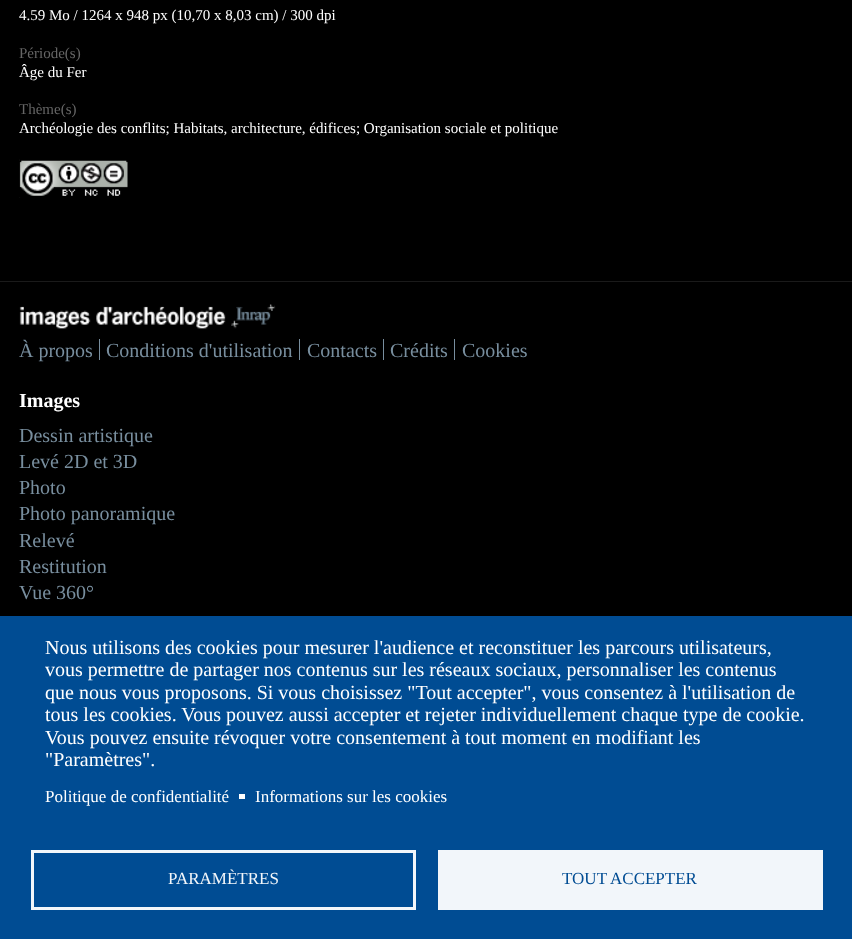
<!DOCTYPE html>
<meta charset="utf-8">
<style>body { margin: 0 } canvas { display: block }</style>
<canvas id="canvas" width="852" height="939"></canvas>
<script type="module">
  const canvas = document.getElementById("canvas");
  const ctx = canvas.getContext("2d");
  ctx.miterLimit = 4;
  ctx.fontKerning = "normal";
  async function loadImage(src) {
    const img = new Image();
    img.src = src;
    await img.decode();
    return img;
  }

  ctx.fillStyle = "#000000";
  ctx.fillRect(0, 0, 852, 939);
  ctx.font = "15px Liberation Serif";
  ctx.fillStyle = "#ffffff";
  ctx.fillText("4.59 Mo / 1264 x 948 px (10,70 x 8,03 cm) / 300 dpi", 19, 20);
  ctx.fillStyle = "#666666";
  ctx.fillText("Période(s)", 19, 58);
  ctx.fillStyle = "#ffffff";
  ctx.fillText("Âge du Fer", 19, 77);
  ctx.fillStyle = "#666666";
  ctx.fillText("Thème(s)", 19, 114);
  ctx.fillStyle = "#ffffff";
  ctx.fillText("Archéologie des conflits; Habitats, architecture, édifices; Organisation sociale et politique", 19, 133);
  ctx.drawImage(await loadImage("img1.png"), 19, 159, 109, 39);
  ctx.fillStyle = "#1a1a1a";
  ctx.fillRect(0, 281, 852, 1);
  ctx.drawImage(await loadImage("img2.png"), 19, 304, 257, 25);
  ctx.font = "20px Liberation Serif";
  ctx.fillStyle = "#788e9e";
  ctx.fillText("À propos", 19, 357);
  ctx.fillText("Conditions d'utilisation", 106, 357);
  ctx.fillRect(99, 339, 1, 21);
  ctx.fillText("Contacts", 307, 357);
  ctx.fillRect(299, 339, 1, 21);
  ctx.fillText("Crédits", 390, 357);
  ctx.fillRect(383, 339, 1, 21);
  ctx.fillText("Cookies", 462, 357);
  ctx.fillRect(454, 339, 1, 21);
  ctx.font = "bold 20px Liberation Serif";
  ctx.fillStyle = "#ffffff";
  ctx.fillText("Images", 19, 407);
  ctx.font = "20px Liberation Serif";
  ctx.fillStyle = "#788e9e";
  ctx.fillText("Dessin artistique", 19, 442);
  ctx.fillText("Levé 2D et 3D", 19, 468);
  ctx.fillText("Photo", 19, 494);
  ctx.fillText("Photo panoramique", 19, 520);
  ctx.fillText("Relevé", 19, 547);
  ctx.fillText("Restitution", 19, 573);
  ctx.fillText("Vue 360°", 19, 599);
  ctx.fillStyle = "#004c93";
  ctx.fillRect(0, 616, 852, 323);
  ctx.fillStyle = "#ffffff";
  ctx.fillText("Nous utilisons des cookies pour mesurer l'audience et reconstituer les parcours utilisateurs,", 45, 654);
  ctx.fillText("vous permettre de partager nos contenus sur les réseaux sociaux, personnaliser les contenus", 45, 676);
  ctx.fillText("que nous vous proposons. Si vous choisissez \"Tout accepter\", vous consentez à l'utilisation de", 45, 699);
  ctx.fillText("tous les cookies. Vous pouvez aussi accepter et rejeter individuellement chaque type de cookie.", 45, 721);
  ctx.fillText("Vous pouvez ensuite révoquer votre consentement à tout moment en modifiant les", 45, 744);
  ctx.fillText("\"Paramètres\".", 45, 766);
  ctx.font = "17px Liberation Serif";
  ctx.fillText("Politique de confidentialité", 45, 802);
  ctx.fillRect(239, 794, 6, 5);
  ctx.fillText("Informations sur les cookies", 255, 802);
  ctx.strokeStyle = "#f2f6fa";
  ctx.lineWidth = 3;
  ctx.strokeRect(32.5, 851.5, 382, 57);
  ctx.fillStyle = "#f2f6fa";
  ctx.fillText("PARAMÈTRES", 168, 884);
  ctx.fillRect(438, 850, 385, 60);
  ctx.fillStyle = "#004c93";
  ctx.fillText("TOUT ACCEPTER", 562, 884);
</script>
